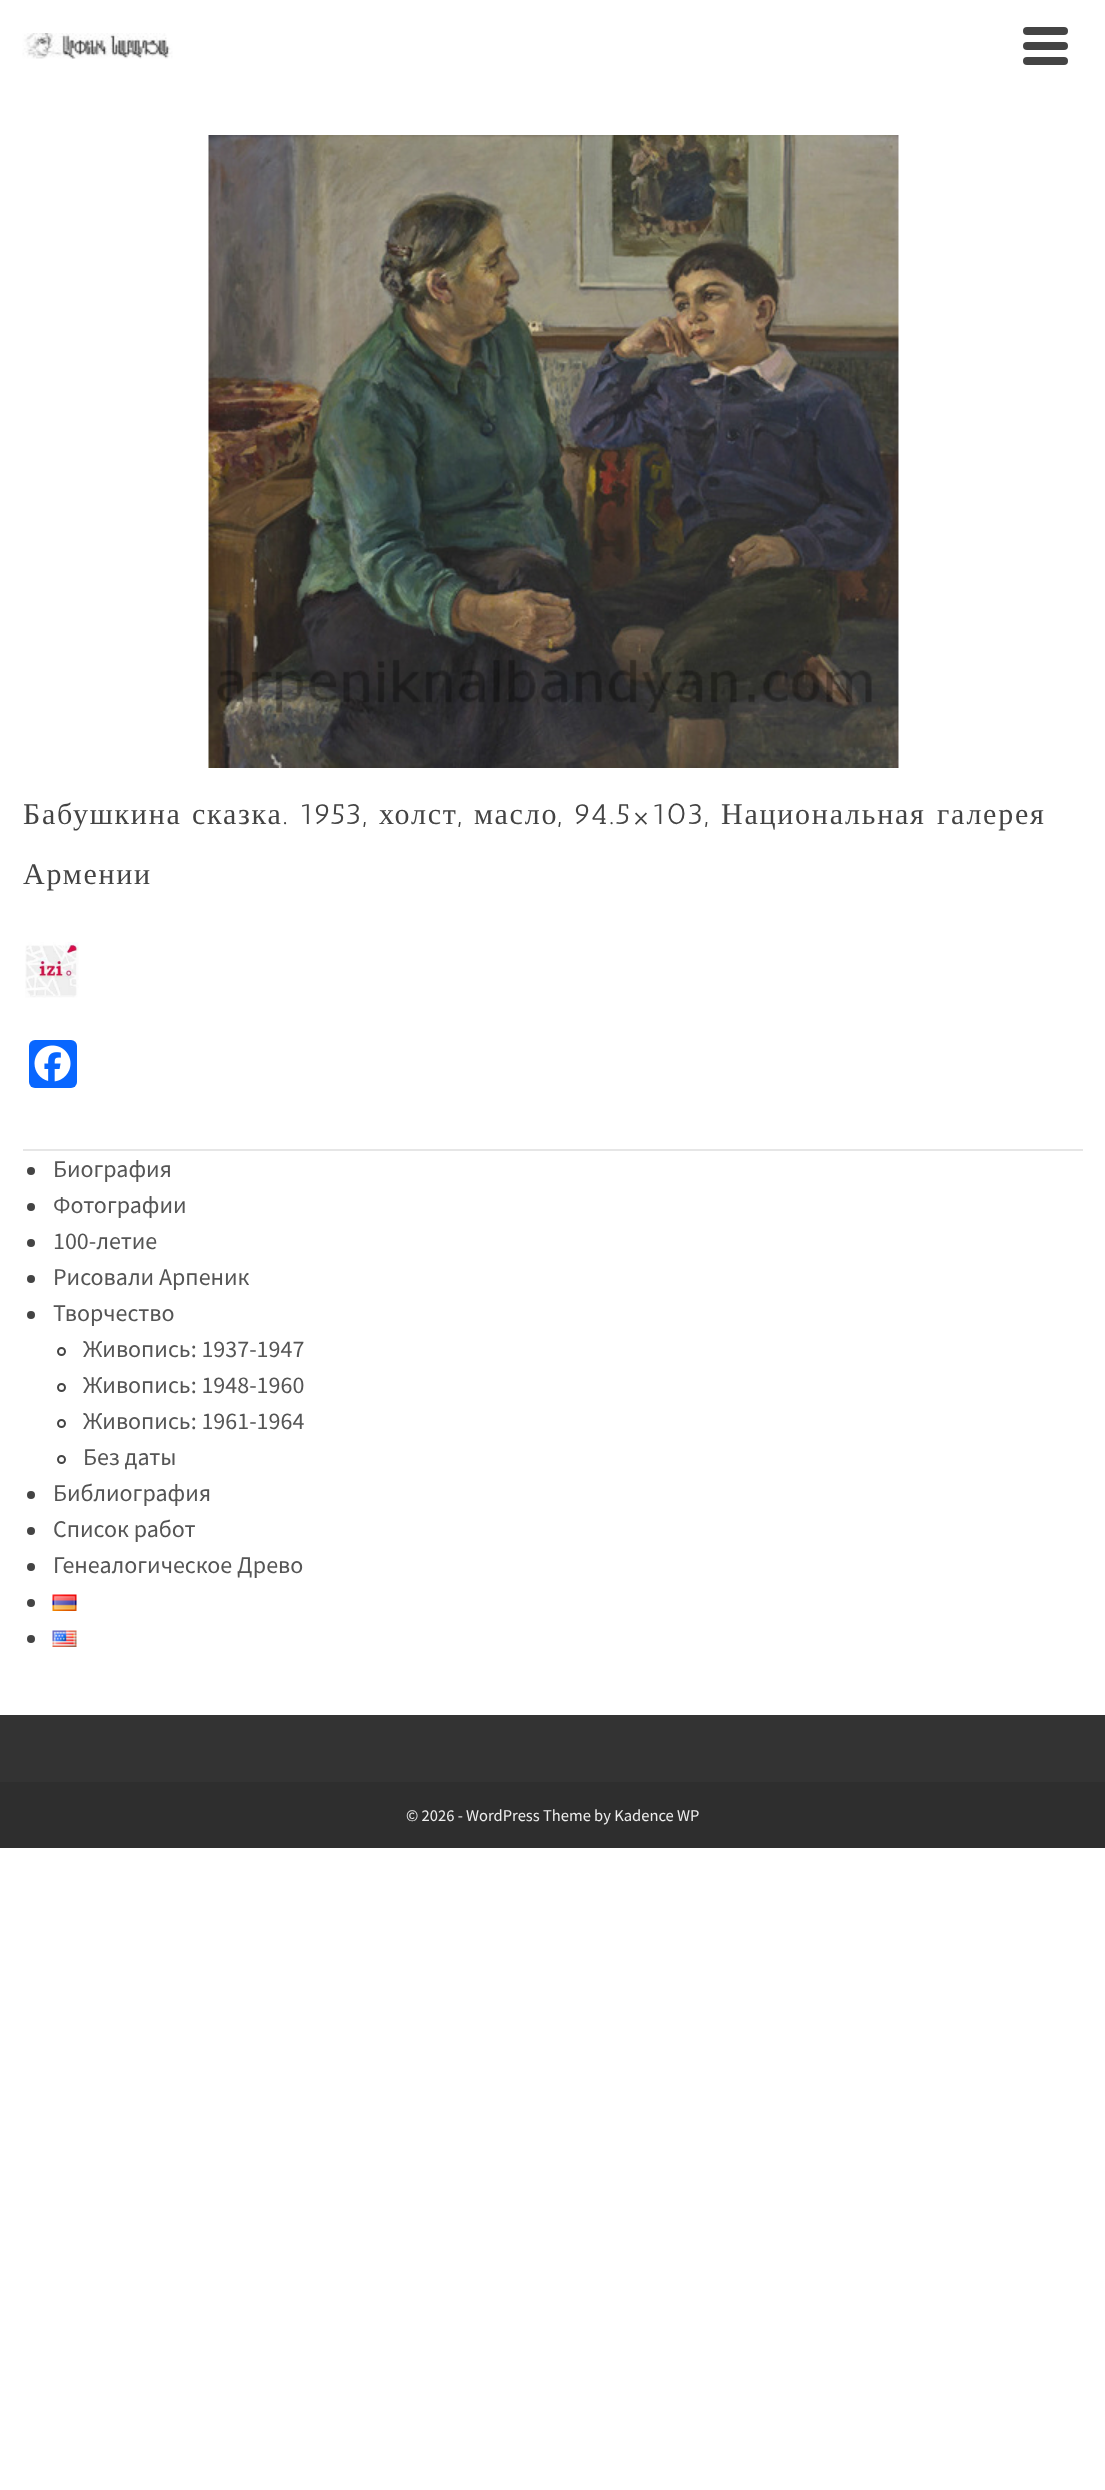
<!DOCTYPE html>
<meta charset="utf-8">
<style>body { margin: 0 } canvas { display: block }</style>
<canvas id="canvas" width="1105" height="2490"></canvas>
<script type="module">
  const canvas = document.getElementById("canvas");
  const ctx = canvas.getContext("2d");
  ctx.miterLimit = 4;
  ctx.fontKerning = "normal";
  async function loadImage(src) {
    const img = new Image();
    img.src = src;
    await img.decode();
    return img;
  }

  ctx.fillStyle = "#ffffff";
  ctx.fillRect(0, 0, 1105, 2490);
  ctx.drawImage(await loadImage("img1.png"), 22, 33, 151, 26);
  ctx.fillStyle = "#444444";
  ctx.beginPath();
  ctx.roundRect(1023, 27, 45, 8, 4);
  ctx.fill();
  ctx.beginPath();
  ctx.roundRect(1023, 42, 45, 8, 4);
  ctx.fill();
  ctx.beginPath();
  ctx.roundRect(1023, 57, 45, 8, 4);
  ctx.fill();
  ctx.drawImage(await loadImage("img2.png"), 208, 135, 691, 633);
  ctx.letterSpacing = "1.75px";
  ctx.font = "30px Liberation Serif";
  ctx.fillText("Бабушкина", 23, 824);
  ctx.fillText("сказка", 192, 824);
  ctx.font = "30px Antic Slab";
  ctx.fillText(". 1953,", 283, 824);
  ctx.font = "30px Liberation Serif";
  ctx.fillText("холст", 379, 824);
  ctx.font = "30px Antic Slab";
  ctx.fillText(",", 458, 824);
  ctx.font = "30px Liberation Serif";
  ctx.fillText("масло", 474, 824);
  ctx.font = "30px Antic Slab";
  ctx.fillText(", 94.5×103,", 558, 824);
  ctx.font = "30px Liberation Serif";
  ctx.fillText("Национальная", 721, 824);
  ctx.fillText("галерея", 937, 824);
  ctx.fillText("Армении", 23, 884);
  ctx.drawImage(await loadImage("img3.png"), 25, 942, 54, 56);
  ctx.fillStyle = "#0866ff";
  ctx.beginPath();
  ctx.roundRect(29, 1040, 48, 48, 6);
  ctx.fill();
  ctx.drawImage(await loadImage("img4.png"), 34, 1045, 37, 37);
  ctx.fillStyle = "#e6e6e6";
  ctx.fillRect(23, 1149, 1060, 2);
  ctx.fillStyle = "#444444";
  ctx.beginPath();
  ctx.arc(31, 1171, 4, 0, Math.PI * 2);
  ctx.fill();
  ctx.letterSpacing = "0px";
  ctx.font = "24px Source Sans Pro";
  ctx.fillStyle = "#555555";
  ctx.fillText("Биография", 53, 1177);
  ctx.fillStyle = "#444444";
  ctx.beginPath();
  ctx.arc(31, 1207, 4, 0, Math.PI * 2);
  ctx.fill();
  ctx.fillStyle = "#555555";
  ctx.fillText("Фотографии", 53, 1213);
  ctx.fillStyle = "#444444";
  ctx.beginPath();
  ctx.arc(31, 1243, 4, 0, Math.PI * 2);
  ctx.fill();
  ctx.fillStyle = "#555555";
  ctx.fillText("100-летие", 53, 1249);
  ctx.fillStyle = "#444444";
  ctx.beginPath();
  ctx.arc(31, 1279, 4, 0, Math.PI * 2);
  ctx.fill();
  ctx.fillStyle = "#555555";
  ctx.fillText("Рисовали Арпеник", 53, 1285);
  ctx.fillStyle = "#444444";
  ctx.beginPath();
  ctx.arc(31, 1315, 4, 0, Math.PI * 2);
  ctx.fill();
  ctx.fillStyle = "#555555";
  ctx.fillText("Творчество", 53, 1321);
  ctx.beginPath();
  ctx.arc(61.5, 1351.5, 3.5, 0, Math.PI * 2);
  ctx.strokeStyle = "#444444";
  ctx.lineWidth = 2;
  ctx.stroke();
  ctx.fillText("Живопись: 1937-1947", 83, 1357);
  ctx.beginPath();
  ctx.arc(61.5, 1387.5, 3.5, 0, Math.PI * 2);
  ctx.stroke();
  ctx.fillText("Живопись: 1948-1960", 83, 1393);
  ctx.beginPath();
  ctx.arc(61.5, 1423.5, 3.5, 0, Math.PI * 2);
  ctx.stroke();
  ctx.fillText("Живопись: 1961-1964", 83, 1429);
  ctx.beginPath();
  ctx.arc(61.5, 1459.5, 3.5, 0, Math.PI * 2);
  ctx.stroke();
  ctx.fillText("Без даты", 83, 1465);
  ctx.fillStyle = "#444444";
  ctx.beginPath();
  ctx.arc(31, 1495, 4, 0, Math.PI * 2);
  ctx.fill();
  ctx.fillStyle = "#555555";
  ctx.fillText("Библиография", 53, 1501);
  ctx.fillStyle = "#444444";
  ctx.beginPath();
  ctx.arc(31, 1531, 4, 0, Math.PI * 2);
  ctx.fill();
  ctx.fillStyle = "#555555";
  ctx.fillText("Список работ", 53, 1537);
  ctx.fillStyle = "#444444";
  ctx.beginPath();
  ctx.arc(31, 1567, 4, 0, Math.PI * 2);
  ctx.fill();
  ctx.fillStyle = "#555555";
  ctx.fillText("Генеалогическое Древо", 53, 1573);
  ctx.fillStyle = "#444444";
  ctx.beginPath();
  ctx.arc(31, 1603, 4, 0, Math.PI * 2);
  ctx.fill();
  ctx.drawImage(await loadImage("img5.png"), 52, 1594, 25, 17);
  ctx.beginPath();
  ctx.arc(31, 1639, 4, 0, Math.PI * 2);
  ctx.fill();
  ctx.drawImage(await loadImage("img6.png"), 52, 1630, 25, 17);
  ctx.fillStyle = "#333333";
  ctx.fillRect(0, 1715, 1105, 67);
  ctx.fillStyle = "#2e2e2e";
  ctx.fillRect(0, 1782, 1105, 66);
  ctx.font = "16.5px Source Sans Pro";
  ctx.fillStyle = "#eeeeee";
  ctx.fillText("© 2026 - WordPress Theme by Kadence WP", 406, 1821);
</script>
